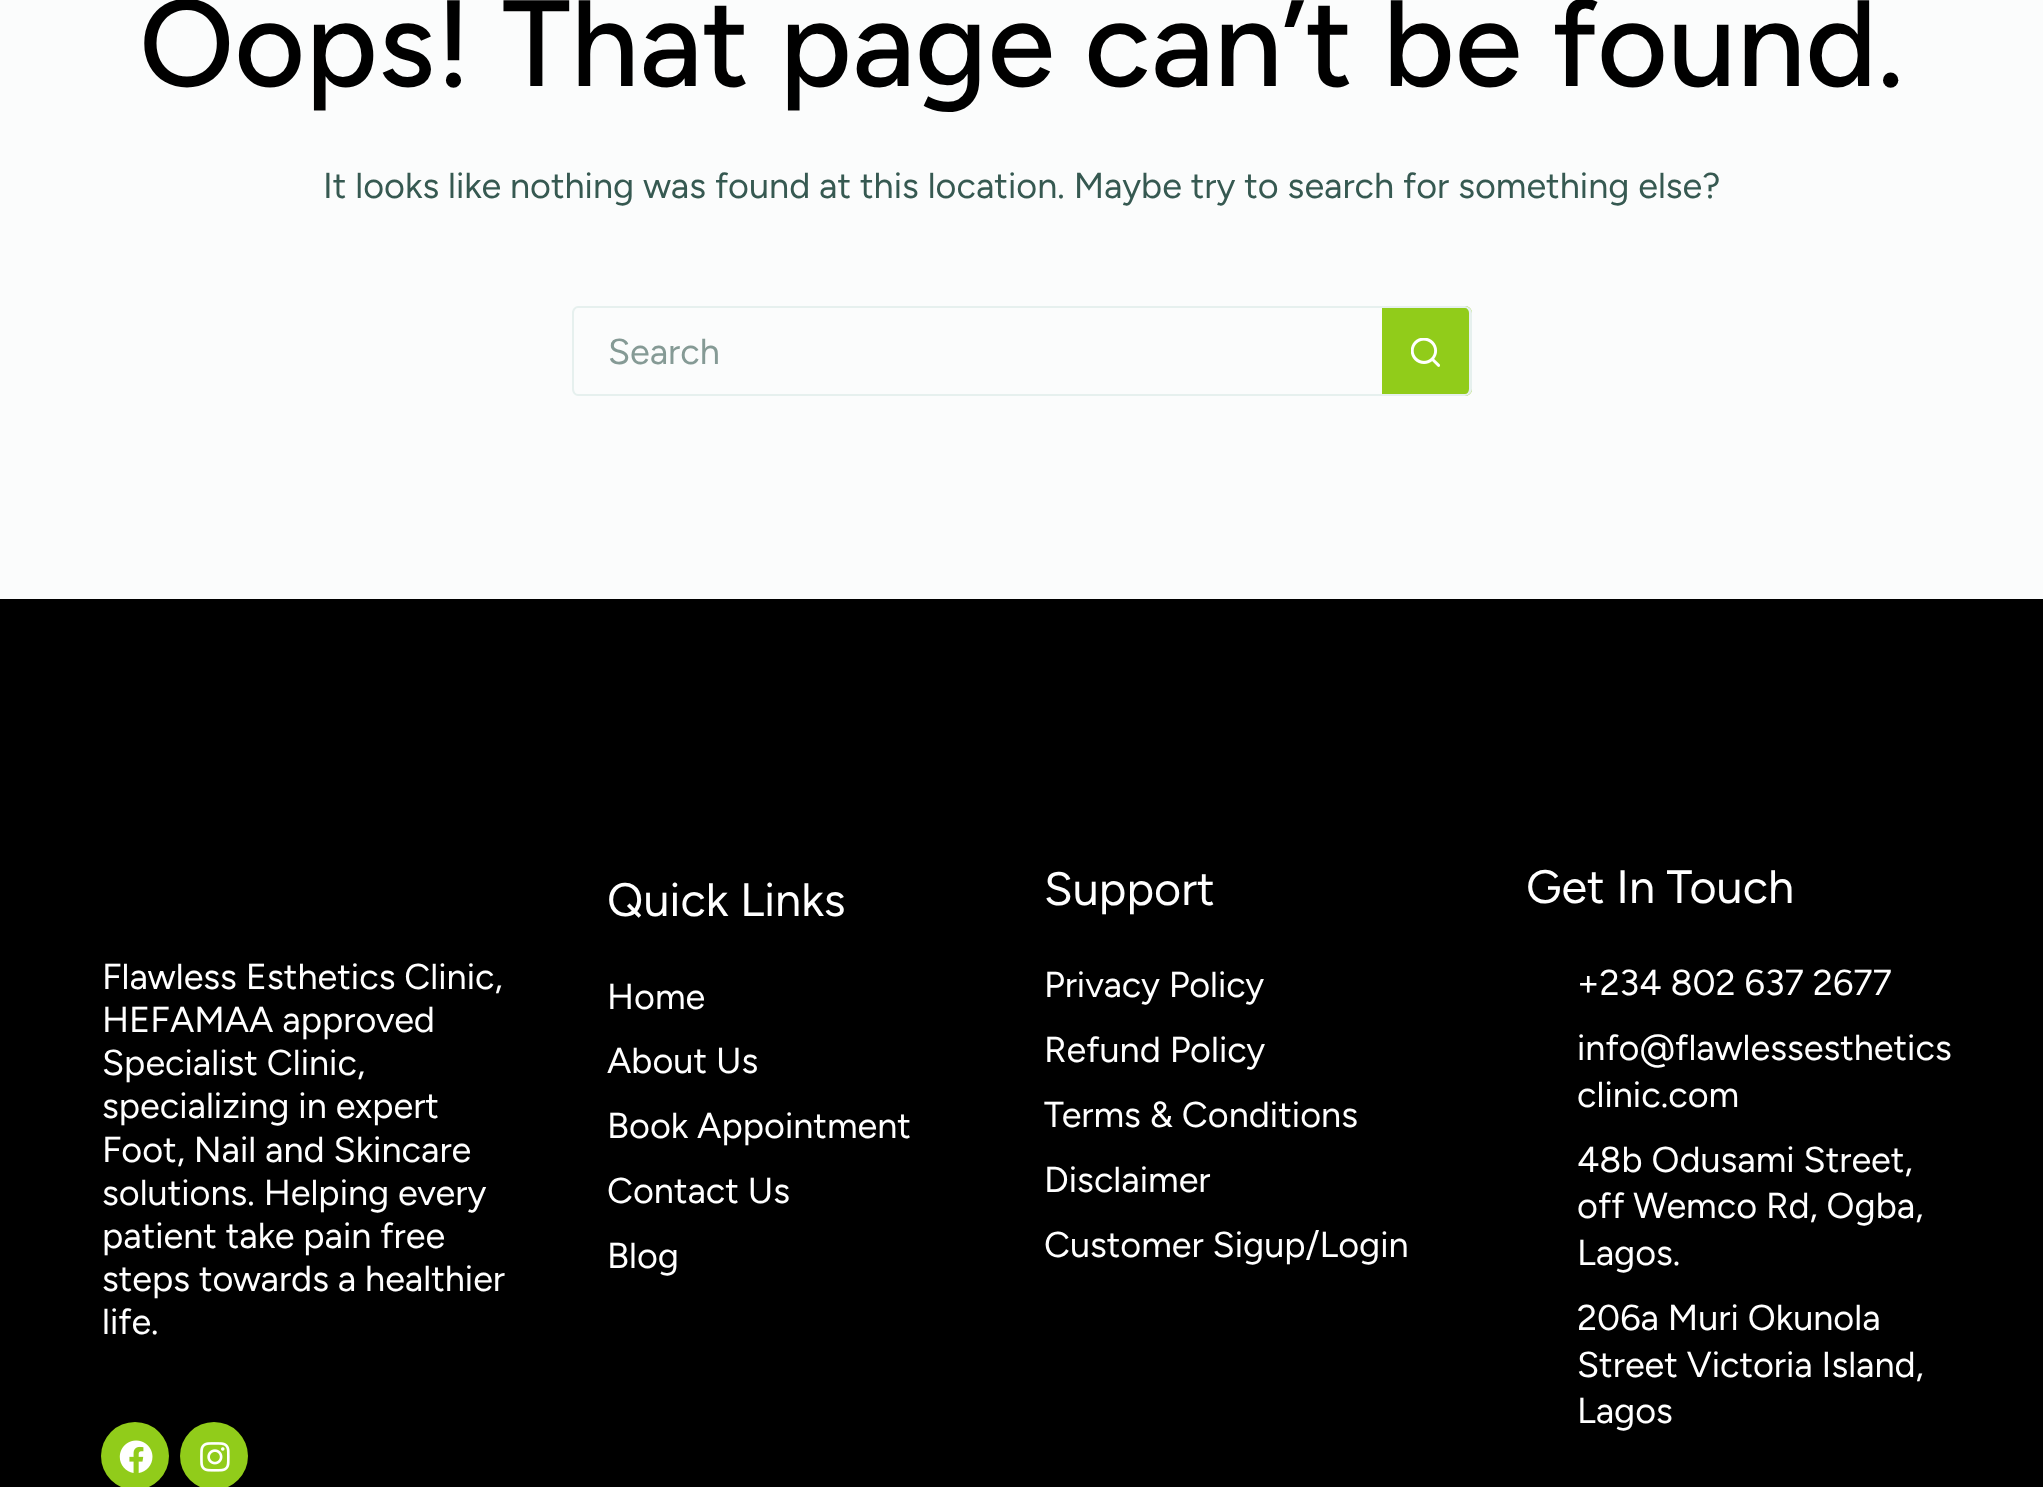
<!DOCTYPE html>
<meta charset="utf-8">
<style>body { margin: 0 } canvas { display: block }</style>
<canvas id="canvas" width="2043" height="1487"></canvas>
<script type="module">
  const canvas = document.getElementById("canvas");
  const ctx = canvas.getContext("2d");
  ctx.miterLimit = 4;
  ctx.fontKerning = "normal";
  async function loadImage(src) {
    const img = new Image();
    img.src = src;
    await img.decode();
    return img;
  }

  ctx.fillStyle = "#fbfcfc";
  ctx.fillRect(0, 0, 2043, 1487);
  ctx.font = "500 122.4px Figtree";
  ctx.fillStyle = "#000000";
  ctx.fillText("Oops! That page can’t be found.", 139, 86);
  ctx.font = "36px Figtree";
  ctx.fillStyle = "#365951";
  ctx.fillText("It looks like nothing was found at this location. Maybe try to search for something else?", 323, 198);
  ctx.fillStyle = "#e6f0ee";
  ctx.beginPath();
  ctx.moveTo(578, 306);
  ctx.lineTo(1382, 306);
  ctx.lineTo(1382, 396);
  ctx.lineTo(578, 396);
  ctx.bezierCurveTo(575, 396, 572, 393, 572, 389);
  ctx.lineTo(572, 313);
  ctx.bezierCurveTo(572, 309, 575, 306, 578, 306);
  ctx.closePath();
  ctx.moveTo(578, 308);
  ctx.lineTo(1382, 308);
  ctx.lineTo(1382, 394);
  ctx.lineTo(578, 394);
  ctx.bezierCurveTo(576, 394, 574, 392, 574, 389);
  ctx.lineTo(574, 313);
  ctx.bezierCurveTo(574, 310, 576, 308, 578, 308);
  ctx.closePath();
  ctx.fill("evenodd");
  ctx.fillStyle = "#859a95";
  ctx.fillText("Search", 608, 364);
  ctx.fillStyle = "#91cc1a";
  ctx.beginPath();
  ctx.roundRect(1382, 306, 90, 90, [0, 7, 7, 0]);
  ctx.fill();
  ctx.fillStyle = "#e6f0ee";
  ctx.beginPath();
  ctx.moveTo(1382, 306);
  ctx.lineTo(1465, 306);
  ctx.bezierCurveTo(1468, 306, 1472, 309, 1472, 313);
  ctx.lineTo(1472, 389);
  ctx.bezierCurveTo(1472, 393, 1468, 396, 1465, 396);
  ctx.lineTo(1382, 396);
  ctx.closePath();
  ctx.moveTo(1382, 308);
  ctx.lineTo(1465, 308);
  ctx.bezierCurveTo(1467, 308, 1469, 310, 1469, 313);
  ctx.lineTo(1469, 389);
  ctx.bezierCurveTo(1469, 392, 1467, 394, 1465, 394);
  ctx.lineTo(1382, 394);
  ctx.closePath();
  ctx.fill("evenodd");
  ctx.drawImage(await loadImage("img1.png"), 1411, 338, 29, 29);
  ctx.fillStyle = "#000000";
  ctx.fillRect(0, 599, 2043, 888);
  ctx.fillStyle = "#ffffff";
  ctx.fillText("Flawless Esthetics Clinic,", 102, 989);
  ctx.fillText("HEFAMAA approved", 102, 1032);
  ctx.fillText("Specialist Clinic,", 102, 1075);
  ctx.fillText("specializing in expert", 102, 1118);
  ctx.fillText("Foot, Nail and Skincare", 102, 1162);
  ctx.fillText("solutions. Helping every", 102, 1205);
  ctx.fillText("patient take pain free", 102, 1248);
  ctx.fillText("steps towards a healthier", 102, 1291);
  ctx.fillText("life.", 102, 1334);
  ctx.fillStyle = "#91cc1a";
  ctx.beginPath();
  ctx.arc(135, 1456, 34, 0, Math.PI * 2);
  ctx.fill();
  ctx.drawImage(await loadImage("img2.png"), 119, 1440, 34, 33);
  ctx.beginPath();
  ctx.arc(214, 1456, 34, 0, Math.PI * 2);
  ctx.fill();
  ctx.drawImage(await loadImage("img3.png"), 200, 1442, 30, 30);
  ctx.font = "46.75px Figtree";
  ctx.fillStyle = "#ffffff";
  ctx.fillText("Quick Links", 607, 916);
  ctx.font = "36px Figtree";
  ctx.fillText("Home", 607, 1009);
  ctx.fillText("About Us", 607, 1073);
  ctx.fillText("Book Appointment", 607, 1138);
  ctx.fillText("Contact Us", 607, 1203);
  ctx.fillText("Blog", 607, 1268);
  ctx.font = "46.75px Figtree";
  ctx.fillText("Support", 1044, 905);
  ctx.font = "36px Figtree";
  ctx.fillText("Privacy Policy", 1044, 997);
  ctx.fillText("Refund Policy", 1044, 1062);
  ctx.fillText("Terms & Conditions", 1044, 1127);
  ctx.fillText("Disclaimer", 1044, 1192);
  ctx.fillText("Customer Sigup/Login", 1044, 1257);
  ctx.font = "46.75px Figtree";
  ctx.fillText("Get In Touch", 1526, 903);
  ctx.font = "36px Figtree";
  ctx.fillText("+234 802 637 2677", 1577, 995);
  ctx.fillText("info@flawlessesthetics", 1577, 1060);
  ctx.fillText("clinic.com", 1577, 1107);
  ctx.fillText("48b Odusami Street,", 1577, 1172);
  ctx.fillText("off Wemco Rd, Ogba,", 1577, 1218);
  ctx.fillText("Lagos.", 1577, 1265);
  ctx.fillText("206a Muri Okunola", 1577, 1330);
  ctx.fillText("Street Victoria Island,", 1577, 1377);
  ctx.fillText("Lagos", 1577, 1423);
</script>
